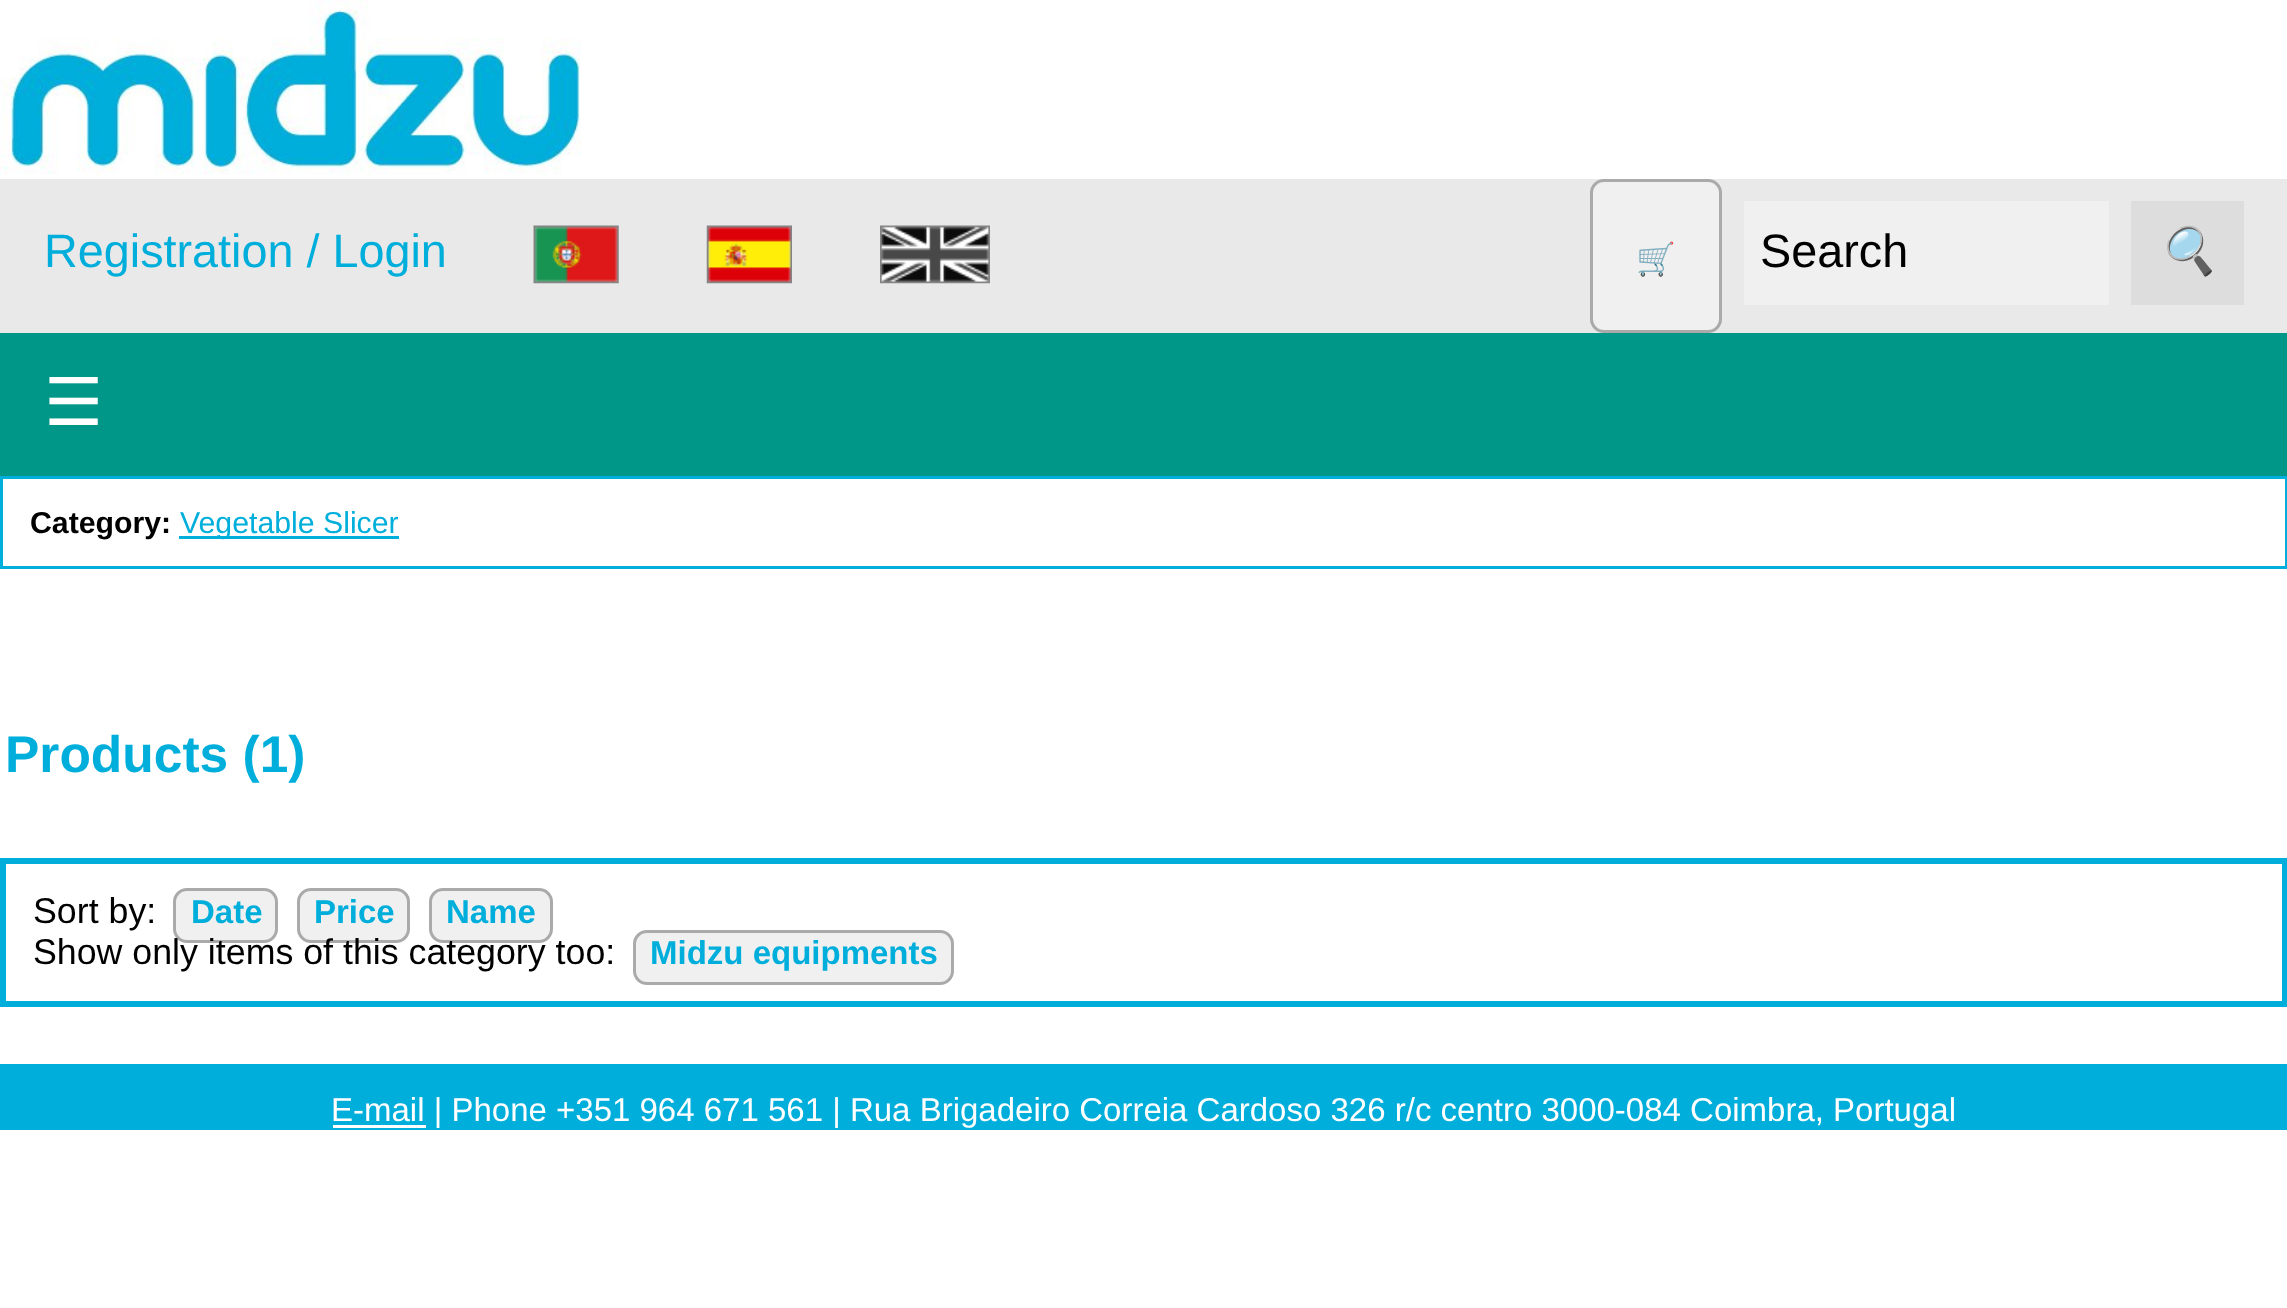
<!DOCTYPE html>
<meta charset="utf-8">
<style>body { margin: 0 } canvas { display: block }</style>
<canvas id="canvas" width="2287" height="1308"></canvas>
<script type="module">
  const canvas = document.getElementById("canvas");
  const ctx = canvas.getContext("2d");
  ctx.miterLimit = 4;
  ctx.fontKerning = "normal";
  async function loadImage(src) {
    const img = new Image();
    img.src = src;
    await img.decode();
    return img;
  }

  ctx.fillStyle = "#ffffff";
  ctx.fillRect(0, 0, 2287, 1308);
  ctx.drawImage(await loadImage("img1.png"), 0, 0, 581, 175);
  ctx.fillStyle = "#e9e9e9";
  ctx.fillRect(0, 179, 2287, 154);
  ctx.font = "46.75px Liberation Sans";
  ctx.fillStyle = "#00aedb";
  ctx.fillText("Registration / Login", 44, 267);
  ctx.drawImage(await loadImage("img2.png"), 533, 225, 86, 59);
  ctx.drawImage(await loadImage("img3.png"), 706, 225, 86, 59);
  ctx.drawImage(await loadImage("img4.png"), 880, 225, 110, 59);
  ctx.fillStyle = "#f0f0f0";
  ctx.beginPath();
  ctx.roundRect(1591.5, 180.5, 129, 151, 12.5);
  ctx.fill();
  ctx.strokeStyle = "#aaaaaa";
  ctx.lineWidth = 3;
  ctx.stroke();
  ctx.font = "bold 32px Noto Color Emoji";
  ctx.fillStyle = "#00aedb";
  ctx.fillText("🛒", 1636, 270);
  ctx.fillStyle = "#f0f0f0";
  ctx.fillRect(1744, 201, 365, 104);
  ctx.font = "46.75px Liberation Sans";
  ctx.fillStyle = "#000000";
  ctx.fillText("Search", 1760, 267);
  ctx.fillStyle = "#dddddd";
  ctx.fillRect(2131, 201, 113, 104);
  ctx.font = "italic 46.75px Noto Color Emoji";
  ctx.fillStyle = "#000000";
  ctx.fillText("🔍", 2158, 267);
  ctx.fillStyle = "#009688";
  ctx.fillRect(0, 333, 2287, 143);
  ctx.font = "66px DejaVu Sans";
  ctx.fillStyle = "#ffffff";
  ctx.fillText("☰", 44, 425);
  ctx.strokeStyle = "#00aedb";
  ctx.strokeRect(1.5, 477.5, 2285, 90);
  ctx.font = "bold 30.25px Liberation Sans";
  ctx.fillStyle = "#000000";
  ctx.fillText("Category:", 30, 533);
  ctx.fillStyle = "#00aedb";
  ctx.fillRect(179, 536, 220, 3);
  ctx.font = "30.25px Liberation Sans";
  ctx.fillText("Vegetable Slicer", 180, 533);
  ctx.font = "bold 51.5px Liberation Sans";
  ctx.fillText("Products (1)", 5, 772);
  ctx.lineWidth = 6;
  ctx.strokeRect(3, 861, 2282, 143);
  ctx.font = "35.75px Liberation Sans";
  ctx.fillStyle = "#000000";
  ctx.fillText("Sort by:", 33, 923);
  ctx.fillStyle = "#f0f0f0";
  ctx.beginPath();
  ctx.roundRect(174.5, 889.5, 102, 52, 12.5);
  ctx.fill();
  ctx.strokeStyle = "#aaaaaa";
  ctx.lineWidth = 3;
  ctx.stroke();
  ctx.font = "bold 33px Liberation Sans";
  ctx.fillStyle = "#00aedb";
  ctx.fillText("Date", 191, 923);
  ctx.fillStyle = "#f0f0f0";
  ctx.beginPath();
  ctx.roundRect(298.5, 889.5, 110, 52, 12.5);
  ctx.fill();
  ctx.stroke();
  ctx.fillStyle = "#00aedb";
  ctx.fillText("Price", 314, 923);
  ctx.fillStyle = "#f0f0f0";
  ctx.beginPath();
  ctx.roundRect(430.5, 889.5, 121, 52, 12.5);
  ctx.fill();
  ctx.stroke();
  ctx.fillStyle = "#00aedb";
  ctx.fillText("Name", 446, 923);
  ctx.font = "35.75px Liberation Sans";
  ctx.fillStyle = "#000000";
  ctx.fillText("Show only items of this category too:", 33, 964);
  ctx.fillStyle = "#f0f0f0";
  ctx.beginPath();
  ctx.roundRect(634.5, 931.5, 318, 52, 12.5);
  ctx.fill();
  ctx.stroke();
  ctx.font = "bold 33px Liberation Sans";
  ctx.fillStyle = "#00aedb";
  ctx.fillText("Midzu equipments", 650, 964);
  ctx.fillRect(0, 1064, 2287, 66);
  ctx.fillStyle = "#ffffff";
  ctx.fillRect(333, 1125, 93, 3);
  ctx.font = "33px Liberation Sans";
  ctx.fillText("E-mail | Phone +351 964 671 561 | Rua Brigadeiro Correia Cardoso 326 r/c centro 3000-084 Coimbra, Portugal", 331, 1121);
</script>
